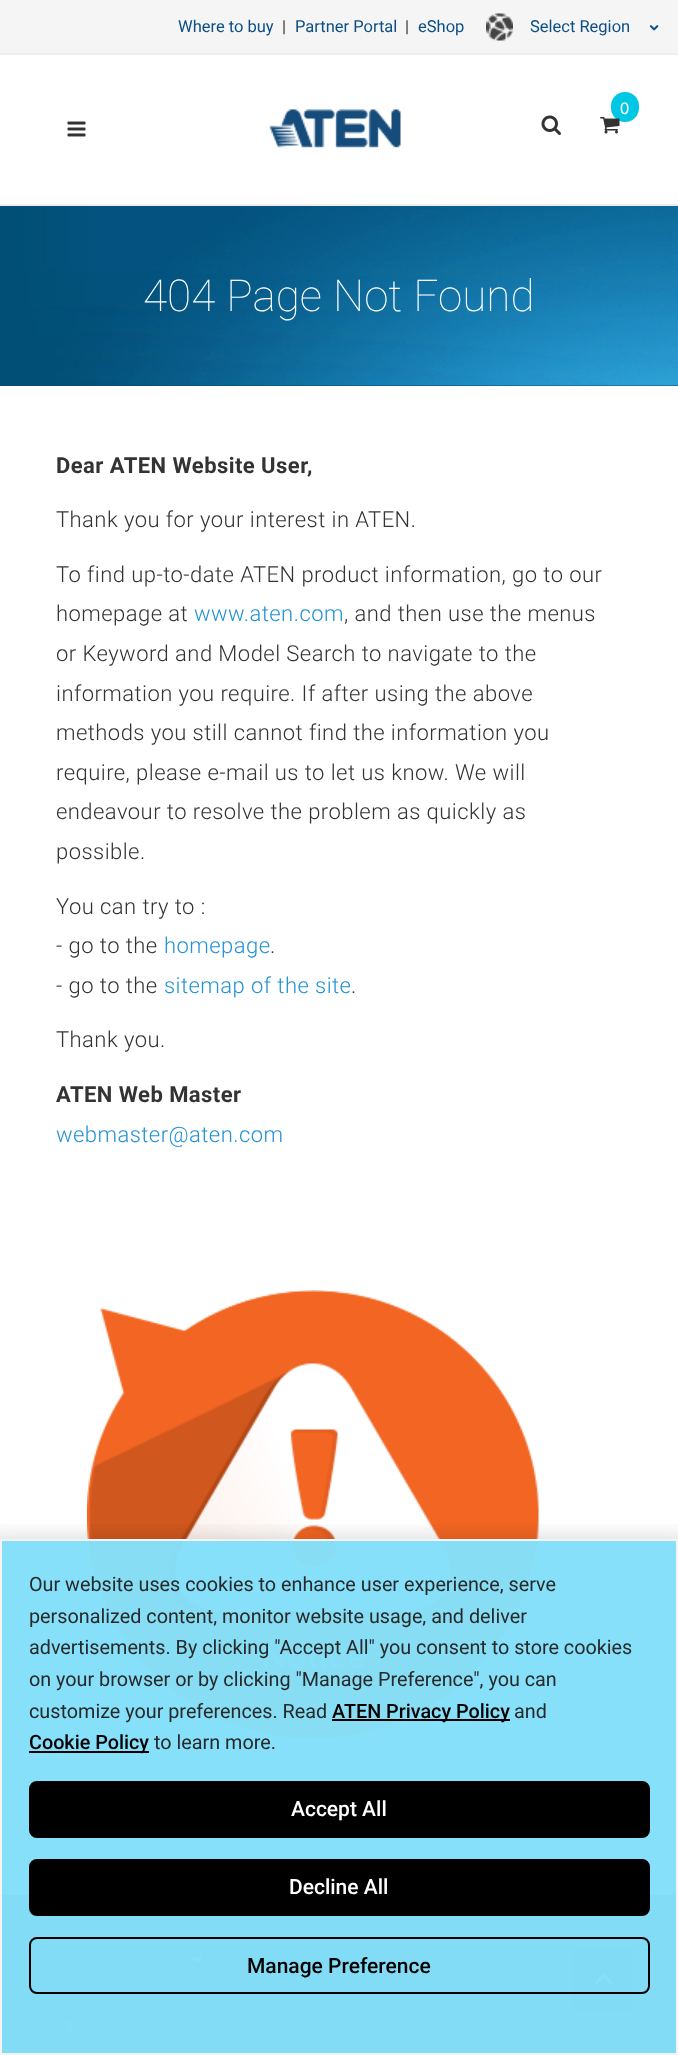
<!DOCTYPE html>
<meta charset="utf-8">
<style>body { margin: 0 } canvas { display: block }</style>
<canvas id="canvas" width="678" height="2055"></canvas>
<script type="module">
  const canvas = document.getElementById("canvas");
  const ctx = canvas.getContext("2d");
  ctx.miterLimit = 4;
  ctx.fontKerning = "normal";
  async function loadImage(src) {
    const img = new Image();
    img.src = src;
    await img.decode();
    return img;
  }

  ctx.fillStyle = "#ffffff";
  ctx.fillRect(0, 0, 678, 2055);
  ctx.fillStyle = "#f5f5f5";
  ctx.fillRect(0, 0, 678, 53);
  ctx.fillStyle = "#eeeeee";
  ctx.fillRect(0, 53, 678, 2);
  ctx.font = "16.5px Roboto";
  ctx.fillStyle = "#0c4e85";
  ctx.fillText("Where to buy", 178, 32);
  ctx.fillStyle = "#333333";
  ctx.fillText("|", 282, 32);
  ctx.fillStyle = "#0c4e85";
  ctx.fillText("Partner Portal", 295, 32);
  ctx.fillStyle = "#333333";
  ctx.fillText("|", 405, 32);
  ctx.fillStyle = "#0c4e85";
  ctx.fillText("eShop", 418, 32);
  ctx.drawImage(await loadImage("img1.png"), 486, 13, 27, 28);
  ctx.fillText("Select Region", 530, 32);
  ctx.drawImage(await loadImage("img2.png"), 649, 25, 10, 6);
  ctx.fillStyle = "#eeeeee";
  ctx.fillRect(0, 204, 678, 2);
  ctx.drawImage(await loadImage("img3.png"), 67, 121, 19, 16);
  ctx.drawImage(await loadImage("img4.png"), 269, 109, 132, 39);
  ctx.fillStyle = "#00c7e4";
  ctx.beginPath();
  ctx.roundRect(611, 92, 28, 30, 14);
  ctx.fill();
  ctx.font = "16.5px Liberation Sans";
  ctx.fillStyle = "#ffffff";
  ctx.fillText("0", 620, 114);
  ctx.drawImage(await loadImage("img5.png"), 600, 117, 20, 17);
  ctx.drawImage(await loadImage("img6.png"), 541, 115, 20, 20);
  ctx.fillStyle = "#014f76";
  ctx.fillRect(0, 385, 678, 1);
  ctx.drawImage(await loadImage("img7.png"), 0, 206, 678, 180);
  ctx.wordSpacing = "0.5px";
  ctx.font = "100 44px Roboto";
  ctx.fillStyle = "#ffffff";
  ctx.fillText("404 Page Not Found", 143, 311);
  ctx.letterSpacing = "0.45px";
  ctx.wordSpacing = "0px";
  ctx.font = "bold 22px Roboto";
  ctx.fillStyle = "#333333";
  ctx.fillText("Dear ATEN Website User,", 56, 473);
  ctx.font = "300 22px Roboto";
  ctx.fillText("Thank you for your interest in ATEN.", 56, 527);
  ctx.fillText("To find up-to-date ATEN product information, go to our", 56, 582);
  ctx.fillText("homepage at", 56, 621);
  ctx.fillStyle = "#2292d3";
  ctx.fillText("www.aten.com", 194, 621);
  ctx.fillStyle = "#333333";
  ctx.fillText(", and then use the menus", 344, 621);
  ctx.fillText("or Keyword and Model Search to navigate to the", 56, 661);
  ctx.fillText("information you require. If after using the above", 56, 701);
  ctx.fillText("methods you still cannot find the information you", 56, 740);
  ctx.fillText("require, please e-mail us to let us know. We will", 56, 780);
  ctx.fillText("endeavour to resolve the problem as quickly as", 56, 819);
  ctx.fillText("possible.", 56, 859);
  ctx.fillText("You can try to :", 56, 914);
  ctx.fillText("- go to the", 56, 953);
  ctx.fillStyle = "#2292d3";
  ctx.fillText("homepage", 164, 953);
  ctx.fillStyle = "#333333";
  ctx.fillText(".", 270, 953);
  ctx.fillText("- go to the", 56, 993);
  ctx.fillStyle = "#2292d3";
  ctx.fillText("sitemap of the site", 164, 993);
  ctx.fillStyle = "#333333";
  ctx.fillText(".", 351, 993);
  ctx.fillText("Thank you.", 56, 1047);
  ctx.font = "bold 22px Roboto";
  ctx.fillText("ATEN Web Master", 56, 1102);
  ctx.font = "300 22px Roboto";
  ctx.fillStyle = "#2292d3";
  ctx.fillText("webmaster@aten.com", 56, 1142);
  ctx.drawImage(await loadImage("img8.png"), 87, 1290, 452, 449);
  ctx.fillStyle = "#333333";
  ctx.fillRect(2, 1895, 674, 158);
  ctx.drawImage(await loadImage("img9.png"), 192, 1956, 11, 7);
  ctx.drawImage(await loadImage("img10.png"), 67, 2021, 7, 11);
  ctx.fillStyle = "#242424";
  ctx.fillRect(573, 1950, 60, 60);
  ctx.drawImage(await loadImage("img11.png"), 595, 1974, 17, 10);
  ctx.save();
  ctx.beginPath();
  ctx.rect(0, 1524, 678, 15);
  ctx.clip();
  ctx.fillStyle = "rgba(0, 0, 0, 0.3)";
  ctx.filter = "blur(15px)";
  ctx.beginPath();
  ctx.rect(-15, 1547, 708, 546);
  ctx.fill();
  ctx.filter = "none";
  ctx.restore();
  ctx.fillStyle = "rgba(133, 223, 249, 0.98)";
  ctx.beginPath();
  ctx.rect(1, 1540, 676, 514);
  ctx.fill();
  ctx.strokeStyle = "#f4f4f4";
  ctx.lineWidth = 2;
  ctx.stroke();
  ctx.letterSpacing = "0px";
  ctx.font = "19.8px Roboto";
  ctx.fillStyle = "#27292a";
  ctx.fillText("Our website uses cookies to enhance user experience, serve", 29, 1591);
  ctx.fillText("personalized content, monitor website usage, and deliver", 29, 1623);
  ctx.fillText("advertisements. By clicking \"Accept All\" you consent to store cookies", 29, 1654);
  ctx.fillText("on your browser or by clicking \"Manage Preference\", you can", 29, 1686);
  ctx.fillText("customize your preferences. Read", 29, 1718);
  ctx.fillStyle = "#000000";
  ctx.fillRect(332, 1719, 178, 2);
  ctx.font = "500 19.8px Roboto";
  ctx.fillText("ATEN Privacy Policy", 332, 1718);
  ctx.font = "19.8px Roboto";
  ctx.fillStyle = "#27292a";
  ctx.fillText("and", 514, 1718);
  ctx.fillStyle = "#000000";
  ctx.fillRect(29, 1751, 120, 2);
  ctx.font = "500 19.8px Roboto";
  ctx.fillText("Cookie Policy", 29, 1749);
  ctx.font = "19.8px Roboto";
  ctx.fillStyle = "#27292a";
  ctx.fillText("to learn more.", 154, 1749);
  ctx.fillStyle = "#000000";
  ctx.beginPath();
  ctx.roundRect(30, 1782, 619, 55, 7);
  ctx.fill();
  ctx.strokeStyle = "#000000";
  ctx.stroke();
  ctx.font = "500 21px Roboto";
  ctx.fillStyle = "#ffffff";
  ctx.fillText("Accept All", 291, 1816);
  ctx.fillStyle = "#000000";
  ctx.beginPath();
  ctx.roundRect(30, 1860, 619, 55, 7);
  ctx.fill();
  ctx.stroke();
  ctx.fillStyle = "#ffffff";
  ctx.fillText("Decline All", 289, 1894);
  ctx.beginPath();
  ctx.roundRect(30, 1938, 619, 55, 7);
  ctx.stroke();
  ctx.fillStyle = "#000000";
  ctx.fillText("Manage Preference", 247, 1973);
</script>
